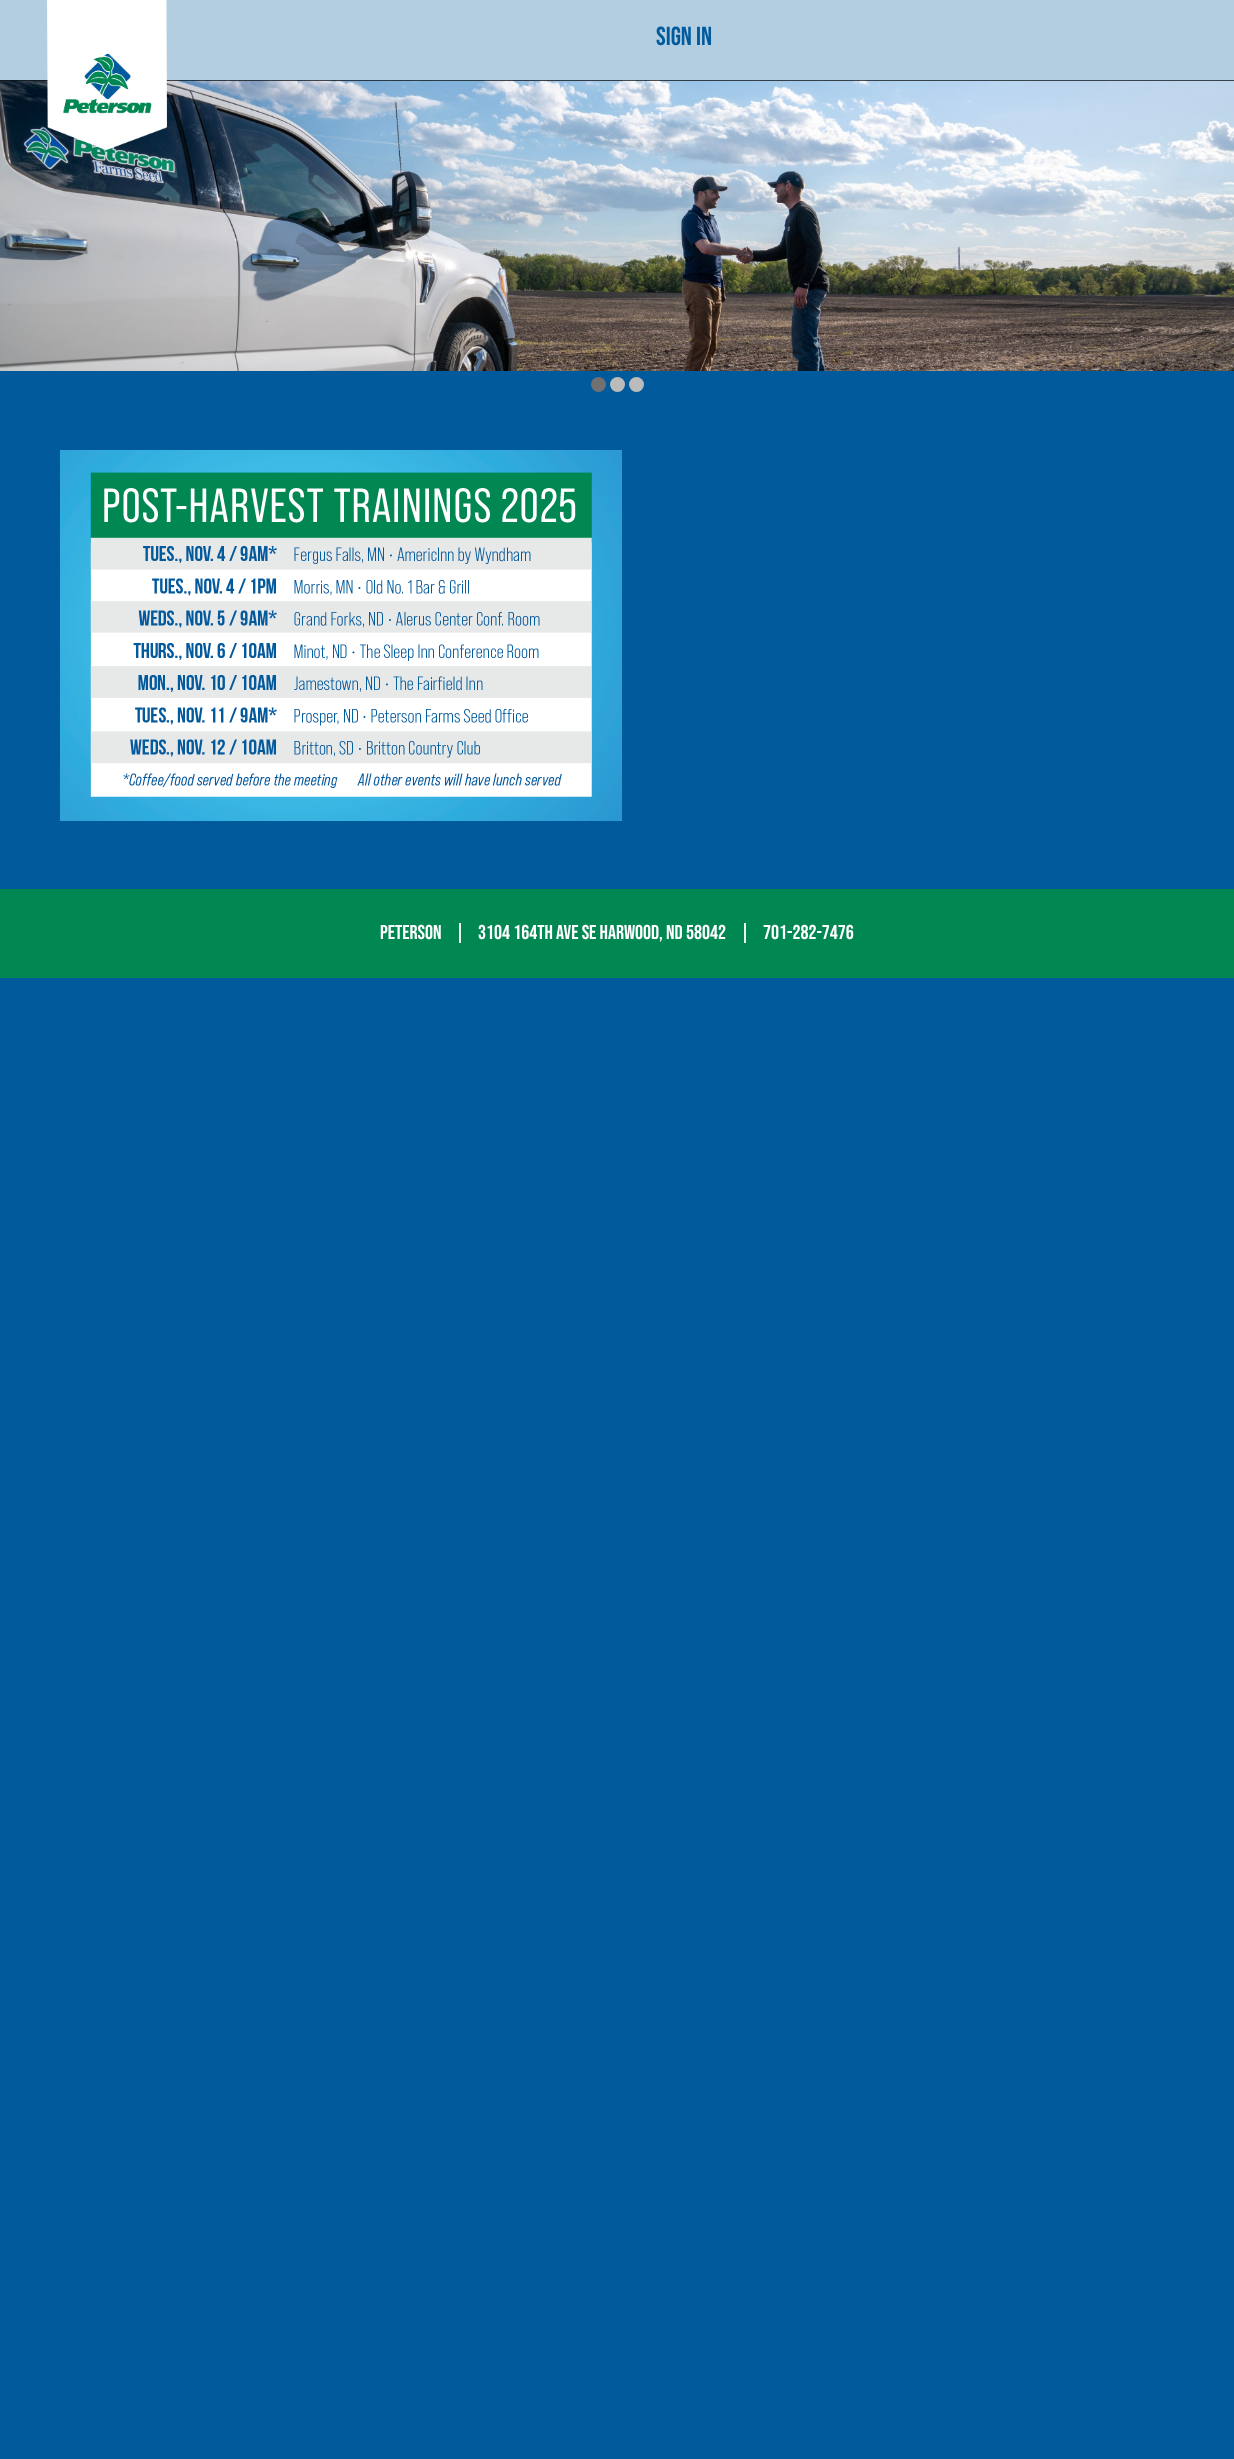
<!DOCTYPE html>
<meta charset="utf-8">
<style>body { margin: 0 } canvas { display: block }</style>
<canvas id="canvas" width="1234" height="2459"></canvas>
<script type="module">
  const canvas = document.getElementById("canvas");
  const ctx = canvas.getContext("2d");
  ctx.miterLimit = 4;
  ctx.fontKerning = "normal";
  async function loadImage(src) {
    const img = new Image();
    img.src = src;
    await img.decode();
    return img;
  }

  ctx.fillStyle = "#015a9c";
  ctx.fillRect(0, 0, 1234, 2459);
  ctx.fillStyle = "#b3cee1";
  ctx.fillRect(0, 0, 1234, 80);
  ctx.drawImage(await loadImage("img2.png"), 0, 80, 1234, 291);
  ctx.drawImage(await loadImage("img1.png"), 47, 0, 120, 150);
  ctx.font = "26px Bebas Neue";
  ctx.fillStyle = "#015a9c";
  ctx.fillText("Sign in", 656, 45);
  ctx.fillStyle = "#717171";
  ctx.beginPath();
  ctx.arc(598.5, 384.5, 7.5, 0, Math.PI * 2);
  ctx.fill();
  ctx.fillStyle = "#bbbbbb";
  ctx.beginPath();
  ctx.arc(617.5, 384.5, 7.5, 0, Math.PI * 2);
  ctx.fill();
  ctx.beginPath();
  ctx.arc(636.5, 384.5, 7.5, 0, Math.PI * 2);
  ctx.fill();
  ctx.drawImage(await loadImage("img3.png"), 60, 450, 562, 371);
  ctx.fillStyle = "#018752";
  ctx.fillRect(0, 889, 1234, 89);
  ctx.font = "20px Bebas Neue";
  ctx.fillStyle = "#ffffff";
  ctx.fillText("Peterson", 380, 939);
  ctx.fillText("|", 455, 939);
  ctx.fillText("3104 164th Ave SE Harwood, ND 58042", 478, 939);
  ctx.fillText("|", 740, 939);
  ctx.fillText("701-282-7476", 763, 939);
</script>
